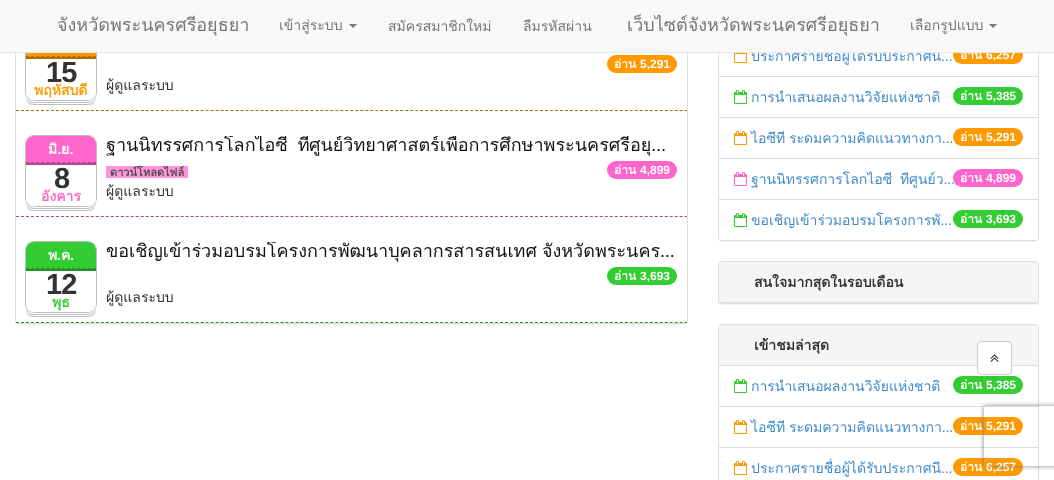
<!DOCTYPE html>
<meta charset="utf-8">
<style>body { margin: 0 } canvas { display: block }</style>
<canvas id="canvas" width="1054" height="480"></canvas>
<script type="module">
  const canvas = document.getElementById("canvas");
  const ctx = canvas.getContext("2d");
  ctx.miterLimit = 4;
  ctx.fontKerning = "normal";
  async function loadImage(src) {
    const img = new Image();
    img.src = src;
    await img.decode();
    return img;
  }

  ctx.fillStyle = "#ffffff";
  ctx.fillRect(0, 0, 1054, 480);
  ctx.fillStyle = "rgba(0, 0, 0, 0.05)";
  ctx.filter = "blur(0.5px)";
  ctx.beginPath();
  ctx.roundRect(15, -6, 673, 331, 4);
  ctx.fill();
  ctx.filter = "none";
  ctx.fillStyle = "#ffffff";
  ctx.beginPath();
  ctx.roundRect(15.5, -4.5, 672, 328, 3.5);
  ctx.fill();
  ctx.strokeStyle = "#dddddd";
  ctx.stroke();
  ctx.beginPath();
  ctx.roundRect(25.5, 29.5, 71, 71, 8.5);
  ctx.strokeStyle = "#bdbdbd";
  ctx.stroke();
  ctx.fillStyle = "#bdbdbd";
  ctx.beginPath();
  ctx.moveTo(26, 92);
  ctx.bezierCurveTo(26, 106, 29, 105, 43, 105);
  ctx.lineTo(79, 105);
  ctx.bezierCurveTo(93, 105, 96, 106, 96, 92);
  ctx.bezierCurveTo(96, 96, 92, 100, 88, 100);
  ctx.lineTo(34, 100);
  ctx.bezierCurveTo(30, 100, 26, 96, 26, 92);
  ctx.closePath();
  ctx.fill();
  ctx.fillStyle = "#ffffff";
  ctx.beginPath();
  ctx.moveTo(26, 92);
  ctx.bezierCurveTo(26, 105, 30, 104, 43, 104);
  ctx.lineTo(79, 104);
  ctx.bezierCurveTo(92, 104, 96, 105, 96, 92);
  ctx.bezierCurveTo(96, 96, 92, 100, 88, 100);
  ctx.lineTo(34, 100);
  ctx.bezierCurveTo(30, 100, 26, 96, 26, 92);
  ctx.closePath();
  ctx.fill();
  ctx.fillStyle = "#bdbdbd";
  ctx.beginPath();
  ctx.moveTo(26, 92);
  ctx.bezierCurveTo(26, 104, 32, 103, 43, 103);
  ctx.lineTo(79, 103);
  ctx.bezierCurveTo(90, 103, 96, 104, 96, 92);
  ctx.bezierCurveTo(96, 96, 92, 100, 88, 100);
  ctx.lineTo(34, 100);
  ctx.bezierCurveTo(30, 100, 26, 96, 26, 92);
  ctx.closePath();
  ctx.fill();
  ctx.fillStyle = "#ffffff";
  ctx.beginPath();
  ctx.moveTo(26, 92);
  ctx.bezierCurveTo(26, 103, 33, 102, 43, 102);
  ctx.lineTo(79, 102);
  ctx.bezierCurveTo(89, 102, 96, 103, 96, 92);
  ctx.bezierCurveTo(96, 96, 92, 100, 88, 100);
  ctx.lineTo(34, 100);
  ctx.bezierCurveTo(30, 100, 26, 96, 26, 92);
  ctx.closePath();
  ctx.fill();
  ctx.fillStyle = "#bdbdbd";
  ctx.beginPath();
  ctx.moveTo(26, 92);
  ctx.bezierCurveTo(26, 102, 35, 101, 43, 101);
  ctx.lineTo(79, 101);
  ctx.bezierCurveTo(87, 101, 96, 102, 96, 92);
  ctx.bezierCurveTo(96, 96, 92, 100, 88, 100);
  ctx.lineTo(34, 100);
  ctx.bezierCurveTo(30, 100, 26, 96, 26, 92);
  ctx.closePath();
  ctx.fill();
  ctx.fillStyle = "#ffffff";
  ctx.beginPath();
  ctx.roundRect(26, 30, 70, 70, 8);
  ctx.fill();
  ctx.fillStyle = "rgba(0, 0, 0, 0.05)";
  ctx.filter = "blur(0.5px)";
  ctx.beginPath();
  ctx.roundRect(718, -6, 321, 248, 4);
  ctx.fill();
  ctx.filter = "none";
  ctx.fillStyle = "#ffffff";
  ctx.beginPath();
  ctx.roundRect(718.5, -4.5, 320, 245, 3.5);
  ctx.fill();
  ctx.strokeStyle = "#dddddd";
  ctx.stroke();
  ctx.font = "14px Loma";
  ctx.fillStyle = "#428bca";
  ctx.fillText("ประกาศรายชื่อผู้ได้รับประกาศนี…", 751, 61);
  ctx.fillStyle = "#ff9900";
  ctx.beginPath();
  ctx.roundRect(953, 46, 70, 18, 9);
  ctx.fill();
  ctx.font = "bold 12px Loma";
  ctx.fillStyle = "#ffffff";
  ctx.fillText("อ่าน", 960, 59);
  ctx.font = "bold 12px Liberation Sans";
  ctx.fillText("6,257", 986, 59);
  ctx.fillStyle = "#f8f8f8";
  ctx.fillRect(0, 0, 1054, 52);
  ctx.fillStyle = "#e7e7e7";
  ctx.fillRect(0, 52, 1054, 1);
  ctx.font = "18px Loma";
  ctx.fillStyle = "#777777";
  ctx.fillText("จังหวัดพระนครศรีอยุธยา", 57, 31);
  ctx.font = "14px Loma";
  ctx.fillText("เข้าสู่ระบบ", 279, 30);
  ctx.beginPath();
  ctx.moveTo(349, 24);
  ctx.lineTo(357, 24);
  ctx.lineTo(353, 28);
  ctx.closePath();
  ctx.fill();
  ctx.fillText("สมัครสมาชิกใหม่", 388, 31);
  ctx.fillText("ลืมรหัสผ่าน", 523, 31);
  ctx.font = "18px Loma";
  ctx.fillText("เว็บไซต์จังหวัดพระนครศรีอยุธยา", 627, 31);
  ctx.font = "14px Loma";
  ctx.fillText("เลือกรูปแบบ", 910, 30);
  ctx.beginPath();
  ctx.moveTo(989, 24);
  ctx.lineTo(997, 24);
  ctx.lineTo(993, 28);
  ctx.closePath();
  ctx.fill();
  ctx.beginPath();
  ctx.moveTo(16, 110.5);
  ctx.lineTo(687, 110.5);
  ctx.strokeStyle = "#b26b00";
  ctx.setLineDash([3, 1.99]);
  ctx.stroke();
  ctx.fillStyle = "#b26b00";
  ctx.fillRect(26, 57, 70, 2);
  ctx.fillStyle = "#ff9900";
  ctx.fillRect(26, 53, 70, 4);
  ctx.beginPath();
  ctx.moveTo(26, 56.5);
  ctx.lineTo(96, 56.5);
  ctx.setLineDash([3, 2.15]);
  ctx.stroke();
  ctx.letterSpacing = "-1px";
  ctx.font = "bold 29px Liberation Sans";
  ctx.fillStyle = "#333333";
  ctx.fillText("15", 46, 82);
  ctx.letterSpacing = "0px";
  ctx.font = "bold 14px Loma";
  ctx.fillStyle = "#ff9900";
  ctx.fillText("พฤหัสบดี", 34, 95);
  ctx.beginPath();
  ctx.roundRect(607, 55, 70, 18, 9);
  ctx.fill();
  ctx.font = "bold 12px Loma";
  ctx.fillStyle = "#ffffff";
  ctx.fillText("อ่าน", 614, 68);
  ctx.font = "bold 12px Liberation Sans";
  ctx.fillText("5,291", 640, 68);
  ctx.save();
  ctx.beginPath();
  ctx.rect(106, 30, 571, 65);
  ctx.clip();
  ctx.font = "14px Loma";
  ctx.fillStyle = "#333333";
  ctx.fillText("ผู้ดูแลระบบ", 106, 90);
  ctx.restore();
  ctx.beginPath();
  ctx.moveTo(16, 216.5);
  ctx.lineTo(687, 216.5);
  ctx.strokeStyle = "#b2478f";
  ctx.setLineDash([3, 1.99]);
  ctx.stroke();
  ctx.beginPath();
  ctx.roundRect(25.5, 135.5, 71, 71, 8.5);
  ctx.strokeStyle = "#bdbdbd";
  ctx.setLineDash([]);
  ctx.stroke();
  ctx.fillStyle = "#bdbdbd";
  ctx.beginPath();
  ctx.moveTo(26, 198);
  ctx.bezierCurveTo(26, 212, 29, 211, 43, 211);
  ctx.lineTo(79, 211);
  ctx.bezierCurveTo(93, 211, 96, 212, 96, 198);
  ctx.bezierCurveTo(96, 202, 92, 206, 88, 206);
  ctx.lineTo(34, 206);
  ctx.bezierCurveTo(30, 206, 26, 202, 26, 198);
  ctx.closePath();
  ctx.fill();
  ctx.fillStyle = "#ffffff";
  ctx.beginPath();
  ctx.moveTo(26, 198);
  ctx.bezierCurveTo(26, 211, 30, 210, 43, 210);
  ctx.lineTo(79, 210);
  ctx.bezierCurveTo(92, 210, 96, 211, 96, 198);
  ctx.bezierCurveTo(96, 202, 92, 206, 88, 206);
  ctx.lineTo(34, 206);
  ctx.bezierCurveTo(30, 206, 26, 202, 26, 198);
  ctx.closePath();
  ctx.fill();
  ctx.fillStyle = "#bdbdbd";
  ctx.beginPath();
  ctx.moveTo(26, 198);
  ctx.bezierCurveTo(26, 210, 32, 209, 43, 209);
  ctx.lineTo(79, 209);
  ctx.bezierCurveTo(90, 209, 96, 210, 96, 198);
  ctx.bezierCurveTo(96, 202, 92, 206, 88, 206);
  ctx.lineTo(34, 206);
  ctx.bezierCurveTo(30, 206, 26, 202, 26, 198);
  ctx.closePath();
  ctx.fill();
  ctx.fillStyle = "#ffffff";
  ctx.beginPath();
  ctx.moveTo(26, 198);
  ctx.bezierCurveTo(26, 209, 33, 208, 43, 208);
  ctx.lineTo(79, 208);
  ctx.bezierCurveTo(89, 208, 96, 209, 96, 198);
  ctx.bezierCurveTo(96, 202, 92, 206, 88, 206);
  ctx.lineTo(34, 206);
  ctx.bezierCurveTo(30, 206, 26, 202, 26, 198);
  ctx.closePath();
  ctx.fill();
  ctx.fillStyle = "#bdbdbd";
  ctx.beginPath();
  ctx.moveTo(26, 198);
  ctx.bezierCurveTo(26, 208, 35, 207, 43, 207);
  ctx.lineTo(79, 207);
  ctx.bezierCurveTo(87, 207, 96, 208, 96, 198);
  ctx.bezierCurveTo(96, 202, 92, 206, 88, 206);
  ctx.lineTo(34, 206);
  ctx.bezierCurveTo(30, 206, 26, 202, 26, 198);
  ctx.closePath();
  ctx.fill();
  ctx.fillStyle = "#ffffff";
  ctx.beginPath();
  ctx.roundRect(26, 136, 70, 70, 8);
  ctx.fill();
  ctx.fillStyle = "#b2478f";
  ctx.fillRect(26, 163, 70, 2);
  ctx.fillStyle = "#ff66cc";
  ctx.beginPath();
  ctx.roundRect(26, 136, 70, 27, [8, 8, 0, 0]);
  ctx.fill();
  ctx.beginPath();
  ctx.moveTo(26, 162.5);
  ctx.lineTo(96, 162.5);
  ctx.strokeStyle = "#b2478f";
  ctx.setLineDash([3, 2.15]);
  ctx.stroke();
  ctx.font = "bold 14px Loma";
  ctx.fillStyle = "#ffffff";
  ctx.fillText("มิ.ย.", 48, 154);
  ctx.letterSpacing = "-1px";
  ctx.font = "bold 29px Liberation Sans";
  ctx.fillStyle = "#333333";
  ctx.fillText("8", 54, 188);
  ctx.letterSpacing = "0px";
  ctx.font = "bold 14px Loma";
  ctx.fillStyle = "#ff66cc";
  ctx.fillText("อังคาร", 41, 201);
  ctx.save();
  ctx.beginPath();
  ctx.rect(106, 136, 571, 20);
  ctx.clip();
  ctx.wordSpacing = "4px";
  ctx.font = "18px Loma";
  ctx.fillStyle = "#0f1214";
  ctx.fillText("ฐานนิทรรศการโลกไอซี ที", 106, 151);
  ctx.wordSpacing = "-1px";
  ctx.fillText("ศูนย์วิทยาศาสตร์เพื่อการศึกษาพระนครศรีอยุ…", 309, 151);
  ctx.restore();
  ctx.fillStyle = "#ff94db";
  ctx.fillRect(106, 166, 82, 12);
  ctx.font = "bold 11px Loma";
  ctx.fillStyle = "#4d4d4d";
  ctx.fillText("ดาวน์โหลดไฟล์", 110, 176);
  ctx.fillStyle = "#ff66cc";
  ctx.beginPath();
  ctx.roundRect(607, 161, 70, 18, 9);
  ctx.fill();
  ctx.font = "bold 12px Loma";
  ctx.fillStyle = "#ffffff";
  ctx.fillText("อ่าน", 614, 174);
  ctx.font = "bold 12px Liberation Sans";
  ctx.fillText("4,899", 640, 174);
  ctx.save();
  ctx.beginPath();
  ctx.rect(106, 136, 571, 65);
  ctx.clip();
  ctx.font = "14px Loma";
  ctx.fillStyle = "#333333";
  ctx.fillText("ผู้ดูแลระบบ", 106, 196);
  ctx.restore();
  ctx.beginPath();
  ctx.moveTo(16, 322.5);
  ctx.lineTo(687, 322.5);
  ctx.strokeStyle = "#248f24";
  ctx.setLineDash([3, 1.99]);
  ctx.stroke();
  ctx.beginPath();
  ctx.roundRect(25.5, 241.5, 71, 71, 8.5);
  ctx.strokeStyle = "#bdbdbd";
  ctx.setLineDash([]);
  ctx.stroke();
  ctx.fillStyle = "#bdbdbd";
  ctx.beginPath();
  ctx.moveTo(26, 304);
  ctx.bezierCurveTo(26, 318, 29, 317, 43, 317);
  ctx.lineTo(79, 317);
  ctx.bezierCurveTo(93, 317, 96, 318, 96, 304);
  ctx.bezierCurveTo(96, 308, 92, 312, 88, 312);
  ctx.lineTo(34, 312);
  ctx.bezierCurveTo(30, 312, 26, 308, 26, 304);
  ctx.closePath();
  ctx.fill();
  ctx.fillStyle = "#ffffff";
  ctx.beginPath();
  ctx.moveTo(26, 304);
  ctx.bezierCurveTo(26, 317, 30, 316, 43, 316);
  ctx.lineTo(79, 316);
  ctx.bezierCurveTo(92, 316, 96, 317, 96, 304);
  ctx.bezierCurveTo(96, 308, 92, 312, 88, 312);
  ctx.lineTo(34, 312);
  ctx.bezierCurveTo(30, 312, 26, 308, 26, 304);
  ctx.closePath();
  ctx.fill();
  ctx.fillStyle = "#bdbdbd";
  ctx.beginPath();
  ctx.moveTo(26, 304);
  ctx.bezierCurveTo(26, 316, 32, 315, 43, 315);
  ctx.lineTo(79, 315);
  ctx.bezierCurveTo(90, 315, 96, 316, 96, 304);
  ctx.bezierCurveTo(96, 308, 92, 312, 88, 312);
  ctx.lineTo(34, 312);
  ctx.bezierCurveTo(30, 312, 26, 308, 26, 304);
  ctx.closePath();
  ctx.fill();
  ctx.fillStyle = "#ffffff";
  ctx.beginPath();
  ctx.moveTo(26, 304);
  ctx.bezierCurveTo(26, 315, 33, 314, 43, 314);
  ctx.lineTo(79, 314);
  ctx.bezierCurveTo(89, 314, 96, 315, 96, 304);
  ctx.bezierCurveTo(96, 308, 92, 312, 88, 312);
  ctx.lineTo(34, 312);
  ctx.bezierCurveTo(30, 312, 26, 308, 26, 304);
  ctx.closePath();
  ctx.fill();
  ctx.fillStyle = "#bdbdbd";
  ctx.beginPath();
  ctx.moveTo(26, 304);
  ctx.bezierCurveTo(26, 314, 35, 313, 43, 313);
  ctx.lineTo(79, 313);
  ctx.bezierCurveTo(87, 313, 96, 314, 96, 304);
  ctx.bezierCurveTo(96, 308, 92, 312, 88, 312);
  ctx.lineTo(34, 312);
  ctx.bezierCurveTo(30, 312, 26, 308, 26, 304);
  ctx.closePath();
  ctx.fill();
  ctx.fillStyle = "#ffffff";
  ctx.beginPath();
  ctx.roundRect(26, 242, 70, 70, 8);
  ctx.fill();
  ctx.fillStyle = "#248f24";
  ctx.fillRect(26, 269, 70, 2);
  ctx.fillStyle = "#33cc33";
  ctx.beginPath();
  ctx.roundRect(26, 242, 70, 27, [8, 8, 0, 0]);
  ctx.fill();
  ctx.beginPath();
  ctx.moveTo(26, 268.5);
  ctx.lineTo(96, 268.5);
  ctx.strokeStyle = "#248f24";
  ctx.setLineDash([3, 2.15]);
  ctx.stroke();
  ctx.font = "bold 14px Loma";
  ctx.fillStyle = "#ffffff";
  ctx.fillText("พ", 48, 260);
  ctx.font = "bold 14px Liberation Sans";
  ctx.fillText(".", 57, 260);
  ctx.font = "bold 14px Loma";
  ctx.fillText("ค", 61, 260);
  ctx.font = "bold 14px Liberation Sans";
  ctx.fillText(".", 70, 260);
  ctx.letterSpacing = "-1px";
  ctx.font = "bold 29px Liberation Sans";
  ctx.fillStyle = "#333333";
  ctx.fillText("12", 46, 294);
  ctx.letterSpacing = "0px";
  ctx.font = "bold 14px Loma";
  ctx.fillStyle = "#33cc33";
  ctx.fillText("พุธ", 52, 307);
  ctx.save();
  ctx.beginPath();
  ctx.rect(106, 242, 571, 20);
  ctx.clip();
  ctx.wordSpacing = "-1px";
  ctx.font = "18px Loma";
  ctx.fillStyle = "#0f1214";
  ctx.fillText("ขอเชิญเข้าร่วมอบรมโครงการพัฒนาบุคลากรสารสนเทศ จังหวัดพระนคร…", 106, 257);
  ctx.restore();
  ctx.beginPath();
  ctx.roundRect(607, 267, 70, 18, 9);
  ctx.fill();
  ctx.font = "bold 12px Loma";
  ctx.fillStyle = "#ffffff";
  ctx.fillText("อ่าน", 614, 280);
  ctx.font = "bold 12px Liberation Sans";
  ctx.fillText("3,693", 640, 280);
  ctx.save();
  ctx.beginPath();
  ctx.rect(106, 242, 571, 65);
  ctx.clip();
  ctx.font = "14px Loma";
  ctx.fillStyle = "#333333";
  ctx.fillText("ผู้ดูแลระบบ", 106, 302);
  ctx.restore();
  ctx.fillStyle = "#dddddd";
  ctx.fillRect(719, 76, 319, 1);
  ctx.drawImage(await loadImage("img1.png"), 734, 53, 13, 10);
  ctx.fillRect(719, 117, 319, 1);
  ctx.drawImage(await loadImage("img2.png"), 734, 90, 13, 14);
  ctx.font = "14px Loma";
  ctx.fillStyle = "#428bca";
  ctx.fillText("การนำเสนอผลงานวิจัยแห่งชาติ", 751, 102);
  ctx.fillStyle = "#33cc33";
  ctx.beginPath();
  ctx.roundRect(953, 87, 70, 18, 9);
  ctx.fill();
  ctx.font = "bold 12px Loma";
  ctx.fillStyle = "#ffffff";
  ctx.fillText("อ่าน", 960, 100);
  ctx.font = "bold 12px Liberation Sans";
  ctx.fillText("5,385", 986, 100);
  ctx.fillStyle = "#dddddd";
  ctx.fillRect(719, 158, 319, 1);
  ctx.drawImage(await loadImage("img3.png"), 734, 131, 13, 14);
  ctx.wordSpacing = "-1px";
  ctx.font = "14px Loma";
  ctx.fillStyle = "#428bca";
  ctx.fillText("ไอซีที ระดมความคิดแนวทางกา…", 751, 143);
  ctx.fillStyle = "#ff9900";
  ctx.beginPath();
  ctx.roundRect(953, 128, 70, 18, 9);
  ctx.fill();
  ctx.wordSpacing = "0px";
  ctx.font = "bold 12px Loma";
  ctx.fillStyle = "#ffffff";
  ctx.fillText("อ่าน", 960, 141);
  ctx.font = "bold 12px Liberation Sans";
  ctx.fillText("5,291", 986, 141);
  ctx.drawImage(await loadImage("img4.png"), 734, 172, 13, 14);
  ctx.wordSpacing = "3px";
  ctx.font = "14px Loma";
  ctx.fillStyle = "#428bca";
  ctx.fillText("ฐานนิทรรศการโลกไอซี ที", 751, 184);
  ctx.wordSpacing = "-1px";
  ctx.fillText("ศูนย์ว…", 909, 184);
  ctx.fillStyle = "#ff66cc";
  ctx.beginPath();
  ctx.roundRect(953, 169, 70, 18, 9);
  ctx.fill();
  ctx.wordSpacing = "0px";
  ctx.font = "bold 12px Loma";
  ctx.fillStyle = "#ffffff";
  ctx.fillText("อ่าน", 960, 182);
  ctx.font = "bold 12px Liberation Sans";
  ctx.fillText("4,899", 986, 182);
  ctx.beginPath();
  ctx.roundRect(719, 199, 319, 41, [0, 0, 3, 3]);
  ctx.fill();
  ctx.fillStyle = "#dddddd";
  ctx.fillRect(719, 199, 319, 1);
  ctx.drawImage(await loadImage("img2.png"), 734, 213, 13, 14);
  ctx.wordSpacing = "-1px";
  ctx.font = "14px Loma";
  ctx.fillStyle = "#428bca";
  ctx.fillText("ขอเชิญเข้าร่วมอบรมโครงการพั…", 751, 225);
  ctx.fillStyle = "#33cc33";
  ctx.beginPath();
  ctx.roundRect(953, 210, 70, 18, 9);
  ctx.fill();
  ctx.wordSpacing = "0px";
  ctx.font = "bold 12px Loma";
  ctx.fillStyle = "#ffffff";
  ctx.fillText("อ่าน", 960, 223);
  ctx.font = "bold 12px Liberation Sans";
  ctx.fillText("3,693", 986, 223);
  ctx.fillStyle = "rgba(0, 0, 0, 0.05)";
  ctx.filter = "blur(0.5px)";
  ctx.beginPath();
  ctx.roundRect(718, 262, 321, 43, 4);
  ctx.fill();
  ctx.filter = "none";
  ctx.beginPath();
  ctx.roundRect(718.5, 261.5, 320, 42, 3.5);
  ctx.strokeStyle = "#dddddd";
  ctx.setLineDash([]);
  ctx.stroke();
  ctx.fillStyle = "#f5f5f5";
  ctx.beginPath();
  ctx.roundRect(719, 262, 319, 41, [3, 3, 0, 0]);
  ctx.fill();
  ctx.fillStyle = "#dddddd";
  ctx.fillRect(719, 302, 319, 1);
  ctx.font = "bold 14px Loma";
  ctx.fillStyle = "#333333";
  ctx.fillText("สนใจมากสุดในรอบเดือน", 754, 287);
  ctx.beginPath();
  ctx.roundRect(718.5, 324.5, 320, 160, 3.5);
  ctx.stroke();
  ctx.fillStyle = "#f5f5f5";
  ctx.beginPath();
  ctx.roundRect(719, 325, 319, 41, [3, 3, 0, 0]);
  ctx.fill();
  ctx.fillStyle = "#dddddd";
  ctx.fillRect(719, 365, 319, 1);
  ctx.fillStyle = "#333333";
  ctx.fillText("เข้าชมล่าสุด", 754, 350);
  ctx.fillStyle = "#dddddd";
  ctx.fillRect(719, 406, 319, 1);
  ctx.drawImage(await loadImage("img2.png"), 734, 379, 13, 14);
  ctx.font = "14px Loma";
  ctx.fillStyle = "#428bca";
  ctx.fillText("การนำเสนอผลงานวิจัยแห่งชาติ", 751, 391);
  ctx.fillStyle = "#33cc33";
  ctx.beginPath();
  ctx.roundRect(953, 376, 70, 18, 9);
  ctx.fill();
  ctx.font = "bold 12px Loma";
  ctx.fillStyle = "#ffffff";
  ctx.fillText("อ่าน", 960, 389);
  ctx.font = "bold 12px Liberation Sans";
  ctx.fillText("5,385", 986, 389);
  ctx.fillStyle = "#dddddd";
  ctx.fillRect(719, 447, 319, 1);
  ctx.drawImage(await loadImage("img3.png"), 734, 420, 13, 14);
  ctx.wordSpacing = "-1px";
  ctx.font = "14px Loma";
  ctx.fillStyle = "#428bca";
  ctx.fillText("ไอซีที ระดมความคิดแนวทางกา…", 751, 432);
  ctx.fillStyle = "#ff9900";
  ctx.beginPath();
  ctx.roundRect(953, 417, 70, 18, 9);
  ctx.fill();
  ctx.wordSpacing = "0px";
  ctx.font = "bold 12px Loma";
  ctx.fillStyle = "#ffffff";
  ctx.fillText("อ่าน", 960, 430);
  ctx.font = "bold 12px Liberation Sans";
  ctx.fillText("5,291", 986, 430);
  ctx.drawImage(await loadImage("img3.png"), 734, 461, 13, 14);
  ctx.font = "14px Loma";
  ctx.fillStyle = "#428bca";
  ctx.fillText("ประกาศรายชื่อผู้ได้รับประกาศนี…", 751, 473);
  ctx.fillStyle = "#ff9900";
  ctx.beginPath();
  ctx.roundRect(953, 458, 70, 18, 9);
  ctx.fill();
  ctx.font = "bold 12px Loma";
  ctx.fillStyle = "#ffffff";
  ctx.fillText("อ่าน", 960, 471);
  ctx.font = "bold 12px Liberation Sans";
  ctx.fillText("6,257", 986, 471);
  ctx.beginPath();
  ctx.roundRect(977.5, 341.5, 34, 33, 3.5);
  ctx.fill();
  ctx.strokeStyle = "#cccccc";
  ctx.stroke();
  ctx.drawImage(await loadImage("img5.png"), 990, 354, 9, 8);
  ctx.save();
  ctx.beginPath();
  ctx.moveTo(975, 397);
  ctx.lineTo(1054, 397);
  ctx.lineTo(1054, 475);
  ctx.lineTo(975, 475);
  ctx.closePath();
  ctx.moveTo(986, 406);
  ctx.lineTo(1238, 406);
  ctx.bezierCurveTo(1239, 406, 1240, 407, 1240, 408);
  ctx.lineTo(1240, 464);
  ctx.bezierCurveTo(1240, 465, 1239, 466, 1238, 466);
  ctx.lineTo(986, 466);
  ctx.bezierCurveTo(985, 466, 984, 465, 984, 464);
  ctx.lineTo(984, 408);
  ctx.bezierCurveTo(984, 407, 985, 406, 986, 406);
  ctx.closePath();
  ctx.clip("evenodd");
  ctx.fillStyle = "#808080";
  ctx.filter = "blur(2.5px)";
  ctx.beginPath();
  ctx.roundRect(984, 406, 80, 60, 2);
  ctx.fill();
  ctx.filter = "none";
  ctx.restore();
</script>
